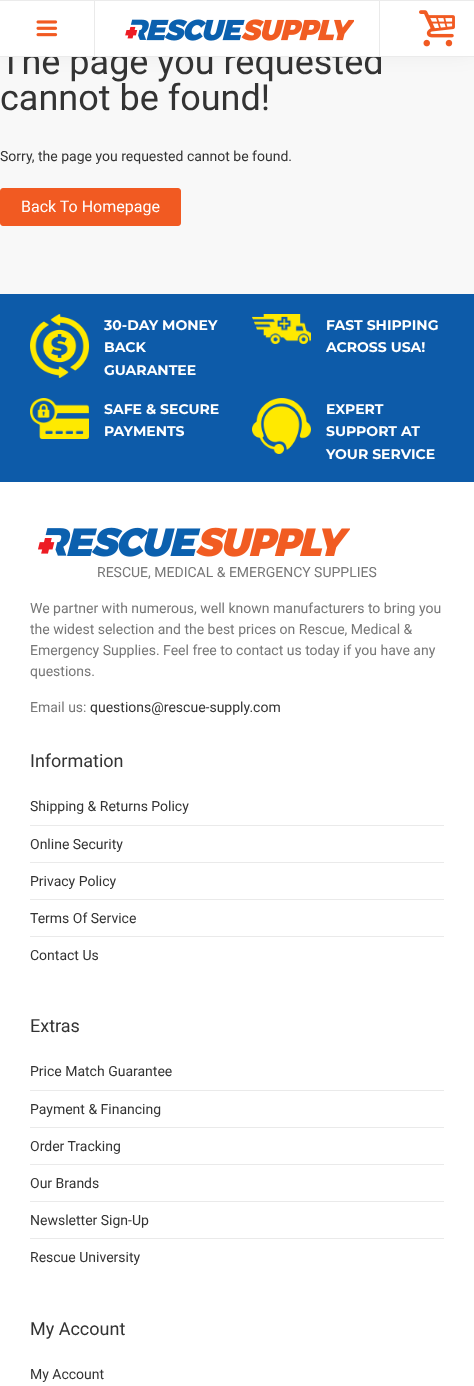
<!DOCTYPE html>
<meta charset="utf-8">
<style>body { margin: 0 } canvas { display: block }</style>
<canvas id="canvas" width="474" height="1386"></canvas>
<script type="module">
  const canvas = document.getElementById("canvas");
  const ctx = canvas.getContext("2d");
  ctx.miterLimit = 4;
  ctx.fontKerning = "normal";
  async function loadImage(src) {
    const img = new Image();
    img.src = src;
    await img.decode();
    return img;
  }

  ctx.fillStyle = "#f8f8f8";
  ctx.fillRect(0, 0, 474, 1386);
  ctx.fillStyle = "rgba(0, 0, 0, 0.08)";
  ctx.filter = "blur(12px)";
  ctx.beginPath();
  ctx.rect(0, -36, 474, 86);
  ctx.fill();
  ctx.filter = "none";
  ctx.font = "36px Roboto";
  ctx.fillStyle = "#333333";
  ctx.fillText("The page you requested", 0, 74);
  ctx.fillStyle = "#ffffff";
  ctx.fillRect(0, 1, 474, 55);
  ctx.fillStyle = "#ebebeb";
  ctx.fillRect(0, 0, 474, 1);
  ctx.fillRect(0, 56, 474, 1);
  ctx.fillStyle = "#eaeaea";
  ctx.fillRect(94, 1, 1, 55);
  ctx.drawImage(await loadImage("img1.png"), 36, 20, 22, 17);
  ctx.drawImage(await loadImage("img2.png"), 125, 19, 229, 22);
  ctx.fillRect(379, 1, 1, 55);
  ctx.drawImage(await loadImage("img3.png"), 419, 10, 36, 37);
  ctx.fillStyle = "#333333";
  ctx.fillText("cannot be found!", 0, 110);
  ctx.font = "14px Roboto";
  ctx.fillText("Sorry, the page you requested cannot be found.", 0, 161);
  ctx.fillStyle = "#f15a22";
  ctx.beginPath();
  ctx.roundRect(0.5, 188.5, 180, 37, 2.5);
  ctx.fill();
  ctx.strokeStyle = "#f15a22";
  ctx.stroke();
  ctx.font = "16px Roboto";
  ctx.fillStyle = "#ffffff";
  ctx.fillText("Back To Homepage", 21, 212);
  ctx.fillStyle = "#0d5ba9";
  ctx.fillRect(0, 294, 474, 188);
  ctx.drawImage(await loadImage("img4.png"), 30, 314, 59, 64);
  ctx.font = "bold 14px Montserrat";
  ctx.fillStyle = "#ffffff";
  ctx.fillText("30-DAY MONEY", 104, 330);
  ctx.fillText("BACK", 104, 352);
  ctx.fillText("GUARANTEE", 104, 375);
  ctx.drawImage(await loadImage("img5.png"), 252, 314, 59, 30);
  ctx.fillText("FAST SHIPPING", 326, 330);
  ctx.fillText("ACROSS USA!", 326, 352);
  ctx.drawImage(await loadImage("img6.png"), 30, 398, 59, 41);
  ctx.fillText("SAFE & SECURE", 104, 414);
  ctx.fillText("PAYMENTS", 104, 436);
  ctx.drawImage(await loadImage("img7.png"), 252, 398, 59, 56);
  ctx.fillText("EXPERT", 326, 414);
  ctx.fillText("SUPPORT AT", 326, 436);
  ctx.fillText("YOUR SERVICE", 326, 459);
  ctx.fillRect(0, 482, 474, 904);
  ctx.drawImage(await loadImage("img8.png"), 38, 527, 312, 30);
  ctx.font = "14px Roboto";
  ctx.fillStyle = "#777777";
  ctx.fillText("RESCUE, MEDICAL & EMERGENCY SUPPLIES", 97, 577);
  ctx.fillText("We partner with numerous, well known manufacturers to bring you", 30, 613);
  ctx.fillText("the widest selection and the best prices on Rescue, Medical &", 30, 634);
  ctx.fillText("Emergency Supplies. Feel free to contact us today if you have any", 30, 655);
  ctx.fillText("questions.", 30, 676);
  ctx.fillText("Email us:", 30, 712);
  ctx.fillStyle = "#333333";
  ctx.fillText("questions@rescue-supply.com", 90, 712);
  ctx.font = "18px Roboto";
  ctx.fillText("Information", 30, 767);
  ctx.fillStyle = "#eaeaea";
  ctx.fillRect(30, 825, 414, 1);
  ctx.font = "14px Roboto";
  ctx.fillStyle = "#333333";
  ctx.fillText("Shipping & Returns Policy", 30, 811);
  ctx.fillStyle = "#eaeaea";
  ctx.fillRect(30, 862, 414, 1);
  ctx.fillStyle = "#333333";
  ctx.fillText("Online Security", 30, 849);
  ctx.fillStyle = "#eaeaea";
  ctx.fillRect(30, 899, 414, 1);
  ctx.fillStyle = "#333333";
  ctx.fillText("Privacy Policy", 30, 886);
  ctx.fillStyle = "#eaeaea";
  ctx.fillRect(30, 936, 414, 1);
  ctx.fillStyle = "#333333";
  ctx.fillText("Terms Of Service", 30, 923);
  ctx.fillText("Contact Us", 30, 960);
  ctx.font = "18px Roboto";
  ctx.fillText("Extras", 30, 1032);
  ctx.fillStyle = "#eaeaea";
  ctx.fillRect(30, 1090, 414, 1);
  ctx.font = "14px Roboto";
  ctx.fillStyle = "#333333";
  ctx.fillText("Price Match Guarantee", 30, 1076);
  ctx.fillStyle = "#eaeaea";
  ctx.fillRect(30, 1127, 414, 1);
  ctx.fillStyle = "#333333";
  ctx.fillText("Payment & Financing", 30, 1114);
  ctx.fillStyle = "#eaeaea";
  ctx.fillRect(30, 1164, 414, 1);
  ctx.fillStyle = "#333333";
  ctx.fillText("Order Tracking", 30, 1151);
  ctx.fillStyle = "#eaeaea";
  ctx.fillRect(30, 1201, 414, 1);
  ctx.fillStyle = "#333333";
  ctx.fillText("Our Brands", 30, 1188);
  ctx.fillStyle = "#eaeaea";
  ctx.fillRect(30, 1238, 414, 1);
  ctx.fillStyle = "#333333";
  ctx.fillText("Newsletter Sign-Up", 30, 1225);
  ctx.fillText("Rescue University", 30, 1262);
  ctx.font = "18px Roboto";
  ctx.fillText("My Account", 30, 1335);
  ctx.font = "14px Roboto";
  ctx.fillText("My Account", 30, 1379);
</script>
